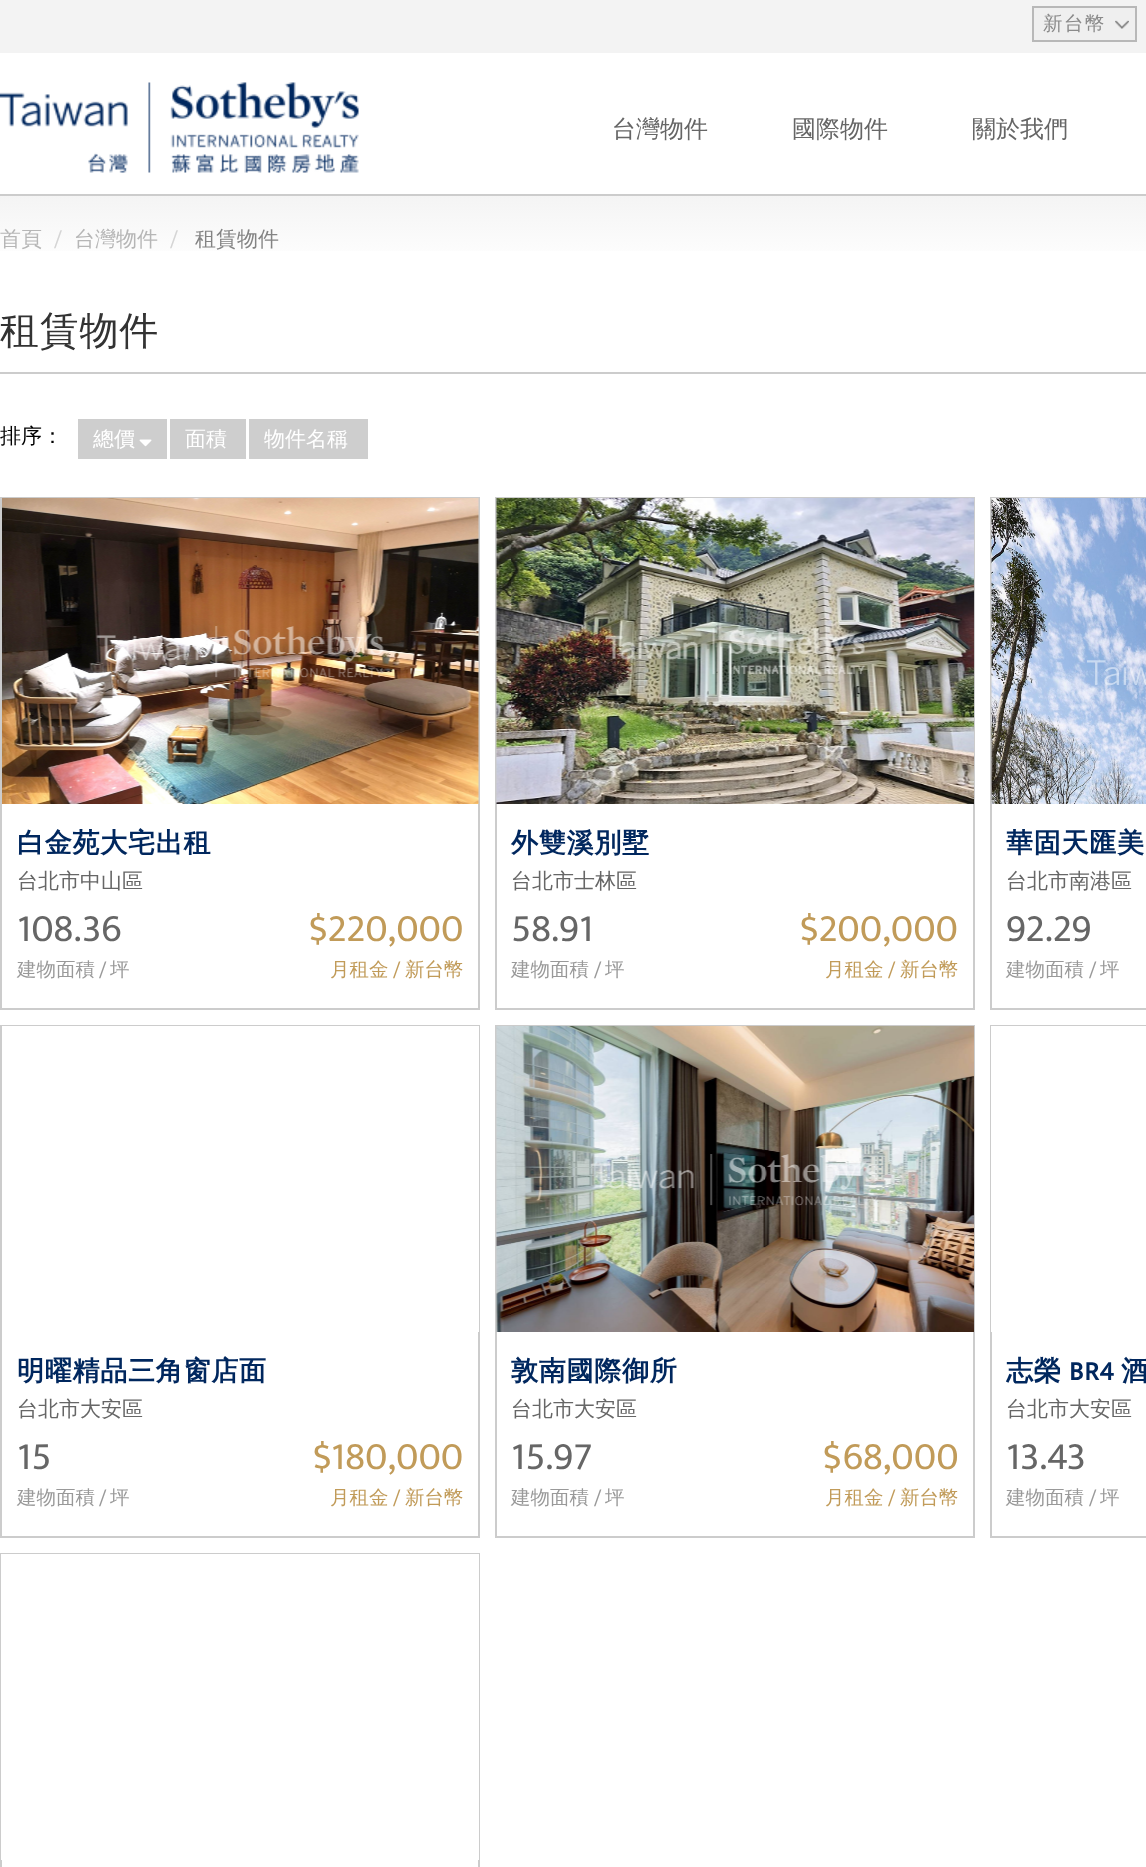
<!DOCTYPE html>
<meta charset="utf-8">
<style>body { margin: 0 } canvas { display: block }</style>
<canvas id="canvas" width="1146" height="1867"></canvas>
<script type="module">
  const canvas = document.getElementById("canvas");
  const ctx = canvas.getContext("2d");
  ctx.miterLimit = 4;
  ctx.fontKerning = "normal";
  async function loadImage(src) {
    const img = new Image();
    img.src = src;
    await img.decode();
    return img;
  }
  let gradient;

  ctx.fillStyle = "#ffffff";
  ctx.fillRect(0, 0, 1146, 1867);
  ctx.fillStyle = "#cccccc";
  ctx.fillRect(0, 194, 1146, 2);
  ctx.fillStyle = "#f3f3f3";
  ctx.fillRect(0, 0, 1146, 53);
  ctx.fillStyle = "#efefef";
  ctx.fillRect(1034, 8, 101, 32);
  ctx.drawImage(await loadImage("img1.png"), 1115, 20, 14, 9);
  ctx.strokeStyle = "#b8b8b8";
  ctx.lineWidth = 2;
  ctx.strokeRect(1033, 7, 103, 34);
  ctx.letterSpacing = "1.5px";
  ctx.font = "500 19.5px WenQuanYi Zen Hei";
  ctx.fillStyle = "#8a8a8a";
  ctx.fillText("新台幣", 1043, 30);
  ctx.drawImage(await loadImage("img2.png"), 0, 82, 359, 91);
  ctx.letterSpacing = "0px";
  ctx.font = "500 24px WenQuanYi Zen Hei";
  ctx.fillStyle = "#666666";
  ctx.fillText("台灣物件", 612, 137);
  ctx.fillText("國際物件", 792, 137);
  ctx.fillText("關於我們", 972, 137);
  gradient = ctx.createLinearGradient(0, 195, 0, 285);
  gradient.addColorStop(0, "#f4f4f4");
  gradient.addColorStop(0.8, "#ffffff");
  ctx.fillStyle = gradient;
  ctx.fillRect(0, 196, 1146, 55);
  ctx.font = "500 21px WenQuanYi Zen Hei";
  ctx.fillStyle = "#b6b6b6";
  ctx.fillText("首頁", 0, 246);
  ctx.font = "21px Ek Mukta";
  ctx.fillStyle = "#d5d5d5";
  ctx.fillText("/", 54, 246);
  ctx.font = "500 21px WenQuanYi Zen Hei";
  ctx.fillStyle = "#b6b6b6";
  ctx.fillText("台灣物件", 74, 246);
  ctx.font = "21px Ek Mukta";
  ctx.fillStyle = "#d5d5d5";
  ctx.fillText("/", 170, 246);
  ctx.font = "500 21px WenQuanYi Zen Hei";
  ctx.fillStyle = "#848484";
  ctx.fillText("租賃物件", 195, 246);
  ctx.fillStyle = "#cccccc";
  ctx.fillRect(0, 372, 1146, 2);
  ctx.letterSpacing = "0.75px";
  ctx.font = "500 39px WenQuanYi Zen Hei";
  ctx.fillStyle = "#333333";
  ctx.fillText("租賃物件", 0, 344);
  ctx.letterSpacing = "0px";
  ctx.font = "500 21px WenQuanYi Zen Hei";
  ctx.fillStyle = "#000000";
  ctx.fillText("排序：", 0, 443);
  ctx.fillStyle = "#cecece";
  ctx.fillRect(78, 419, 89, 40);
  ctx.fillStyle = "#ffffff";
  ctx.fillText("總價", 93, 446);
  ctx.drawImage(await loadImage("img3.png"), 139, 439, 13, 8);
  ctx.fillStyle = "#cecece";
  ctx.fillRect(170, 419, 76, 40);
  ctx.fillStyle = "#ffffff";
  ctx.fillText("面積", 185, 446);
  ctx.fillStyle = "#cecece";
  ctx.fillRect(249, 419, 119, 40);
  ctx.fillStyle = "#ffffff";
  ctx.fillText("物件名稱", 264, 446);
  ctx.strokeStyle = "#cccccc";
  ctx.strokeRect(1, 498, 478, 511);
  ctx.drawImage(await loadImage("img4.png"), 2, 498, 477, 306);
  ctx.letterSpacing = "0.75px";
  ctx.font = "bold 27px WenQuanYi Zen Hei";
  ctx.fillStyle = "#00275e";
  ctx.fillText("白金苑大宅出租", 17, 852);
  ctx.letterSpacing = "0px";
  ctx.font = "500 21px WenQuanYi Zen Hei";
  ctx.fillStyle = "#666666";
  ctx.fillText("台北市中山區", 17, 888);
  ctx.font = "39px Ek Mukta";
  ctx.fillText("108.36", 17, 941);
  ctx.font = "500 19.5px WenQuanYi Zen Hei";
  ctx.fillStyle = "#999999";
  ctx.fillText("建物面積", 17, 976);
  ctx.font = "19.5px Ek Mukta";
  ctx.fillText("/", 99, 976);
  ctx.font = "500 19.5px WenQuanYi Zen Hei";
  ctx.fillText("坪", 110, 976);
  ctx.font = "39px Ek Mukta";
  ctx.fillStyle = "#c19b59";
  ctx.fillText("$220,000", 308, 941);
  ctx.font = "500 19.5px WenQuanYi Zen Hei";
  ctx.fillText("月租金", 330, 976);
  ctx.font = "19.5px Ek Mukta";
  ctx.fillText("/", 393, 976);
  ctx.font = "500 19.5px WenQuanYi Zen Hei";
  ctx.fillText("新台幣", 405, 976);
  ctx.strokeRect(496, 498, 478, 511);
  ctx.drawImage(await loadImage("img5.png"), 496, 498, 478, 306);
  ctx.letterSpacing = "0.75px";
  ctx.font = "bold 27px WenQuanYi Zen Hei";
  ctx.fillStyle = "#00275e";
  ctx.fillText("外雙溪別墅", 511, 852);
  ctx.letterSpacing = "0px";
  ctx.font = "500 21px WenQuanYi Zen Hei";
  ctx.fillStyle = "#666666";
  ctx.fillText("台北市士林區", 511, 888);
  ctx.font = "39px Ek Mukta";
  ctx.fillText("58.91", 511, 941);
  ctx.font = "500 19.5px WenQuanYi Zen Hei";
  ctx.fillStyle = "#999999";
  ctx.fillText("建物面積", 511, 976);
  ctx.font = "19.5px Ek Mukta";
  ctx.fillText("/", 594, 976);
  ctx.font = "500 19.5px WenQuanYi Zen Hei";
  ctx.fillText("坪", 605, 976);
  ctx.font = "39px Ek Mukta";
  ctx.fillStyle = "#c19b59";
  ctx.fillText("$200,000", 799, 941);
  ctx.font = "500 19.5px WenQuanYi Zen Hei";
  ctx.fillText("月租金", 825, 976);
  ctx.font = "19.5px Ek Mukta";
  ctx.fillText("/", 888, 976);
  ctx.font = "500 19.5px WenQuanYi Zen Hei";
  ctx.fillText("新台幣", 900, 976);
  ctx.strokeRect(991, 498, 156, 511);
  ctx.drawImage(await loadImage("img6.png"), 991, 498, 155, 306);
  ctx.letterSpacing = "0.75px";
  ctx.font = "bold 27px WenQuanYi Zen Hei";
  ctx.fillStyle = "#00275e";
  ctx.fillText("華固天匯美", 1006, 852);
  ctx.letterSpacing = "0px";
  ctx.font = "500 21px WenQuanYi Zen Hei";
  ctx.fillStyle = "#666666";
  ctx.fillText("台北市南港區", 1006, 888);
  ctx.font = "39px Ek Mukta";
  ctx.fillText("92.29", 1006, 941);
  ctx.font = "500 19.5px WenQuanYi Zen Hei";
  ctx.fillStyle = "#999999";
  ctx.fillText("建物面積", 1006, 976);
  ctx.font = "19.5px Ek Mukta";
  ctx.fillText("/", 1089, 976);
  ctx.font = "500 19.5px WenQuanYi Zen Hei";
  ctx.fillText("坪", 1100, 976);
  ctx.strokeRect(1, 1026, 478, 511);
  ctx.fillStyle = "#ffffff";
  ctx.fillRect(2, 1026, 477, 306);
  ctx.letterSpacing = "0.75px";
  ctx.font = "bold 27px WenQuanYi Zen Hei";
  ctx.fillStyle = "#00275e";
  ctx.fillText("明曜精品三角窗店面", 17, 1380);
  ctx.letterSpacing = "0px";
  ctx.font = "500 21px WenQuanYi Zen Hei";
  ctx.fillStyle = "#666666";
  ctx.fillText("台北市大安區", 17, 1416);
  ctx.font = "39px Ek Mukta";
  ctx.fillText("15", 17, 1469);
  ctx.font = "500 19.5px WenQuanYi Zen Hei";
  ctx.fillStyle = "#999999";
  ctx.fillText("建物面積", 17, 1504);
  ctx.font = "19.5px Ek Mukta";
  ctx.fillText("/", 99, 1504);
  ctx.font = "500 19.5px WenQuanYi Zen Hei";
  ctx.fillText("坪", 110, 1504);
  ctx.font = "39px Ek Mukta";
  ctx.fillStyle = "#c19b59";
  ctx.fillText("$180,000", 312, 1469);
  ctx.font = "500 19.5px WenQuanYi Zen Hei";
  ctx.fillText("月租金", 330, 1504);
  ctx.font = "19.5px Ek Mukta";
  ctx.fillText("/", 393, 1504);
  ctx.font = "500 19.5px WenQuanYi Zen Hei";
  ctx.fillText("新台幣", 405, 1504);
  ctx.strokeRect(496, 1026, 478, 511);
  ctx.drawImage(await loadImage("img7.png"), 496, 1026, 478, 306);
  ctx.letterSpacing = "0.75px";
  ctx.font = "bold 27px WenQuanYi Zen Hei";
  ctx.fillStyle = "#00275e";
  ctx.fillText("敦南國際御所", 511, 1380);
  ctx.letterSpacing = "0px";
  ctx.font = "500 21px WenQuanYi Zen Hei";
  ctx.fillStyle = "#666666";
  ctx.fillText("台北市大安區", 511, 1416);
  ctx.font = "39px Ek Mukta";
  ctx.fillText("15.97", 511, 1469);
  ctx.font = "500 19.5px WenQuanYi Zen Hei";
  ctx.fillStyle = "#999999";
  ctx.fillText("建物面積", 511, 1504);
  ctx.font = "19.5px Ek Mukta";
  ctx.fillText("/", 594, 1504);
  ctx.font = "500 19.5px WenQuanYi Zen Hei";
  ctx.fillText("坪", 605, 1504);
  ctx.font = "39px Ek Mukta";
  ctx.fillStyle = "#c19b59";
  ctx.fillText("$68,000", 822, 1469);
  ctx.font = "500 19.5px WenQuanYi Zen Hei";
  ctx.fillText("月租金", 825, 1504);
  ctx.font = "19.5px Ek Mukta";
  ctx.fillText("/", 888, 1504);
  ctx.font = "500 19.5px WenQuanYi Zen Hei";
  ctx.fillText("新台幣", 900, 1504);
  ctx.strokeRect(991, 1026, 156, 511);
  ctx.fillStyle = "#ffffff";
  ctx.fillRect(991, 1026, 155, 306);
  ctx.letterSpacing = "0.75px";
  ctx.font = "bold 27px WenQuanYi Zen Hei";
  ctx.fillStyle = "#00275e";
  ctx.fillText("志榮", 1006, 1380);
  ctx.font = "bold 27px Ek Mukta";
  ctx.fillText("BR4", 1069, 1380);
  ctx.font = "bold 27px WenQuanYi Zen Hei";
  ctx.fillText("酒", 1121, 1380);
  ctx.letterSpacing = "0px";
  ctx.font = "500 21px WenQuanYi Zen Hei";
  ctx.fillStyle = "#666666";
  ctx.fillText("台北市大安區", 1006, 1416);
  ctx.font = "39px Ek Mukta";
  ctx.fillText("13.43", 1006, 1469);
  ctx.font = "500 19.5px WenQuanYi Zen Hei";
  ctx.fillStyle = "#999999";
  ctx.fillText("建物面積", 1006, 1504);
  ctx.font = "19.5px Ek Mukta";
  ctx.fillText("/", 1089, 1504);
  ctx.font = "500 19.5px WenQuanYi Zen Hei";
  ctx.fillText("坪", 1100, 1504);
  ctx.strokeRect(1, 1554, 478, 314);
  ctx.fillStyle = "#ffffff";
  ctx.fillRect(1, 1554, 478, 306);
</script>
